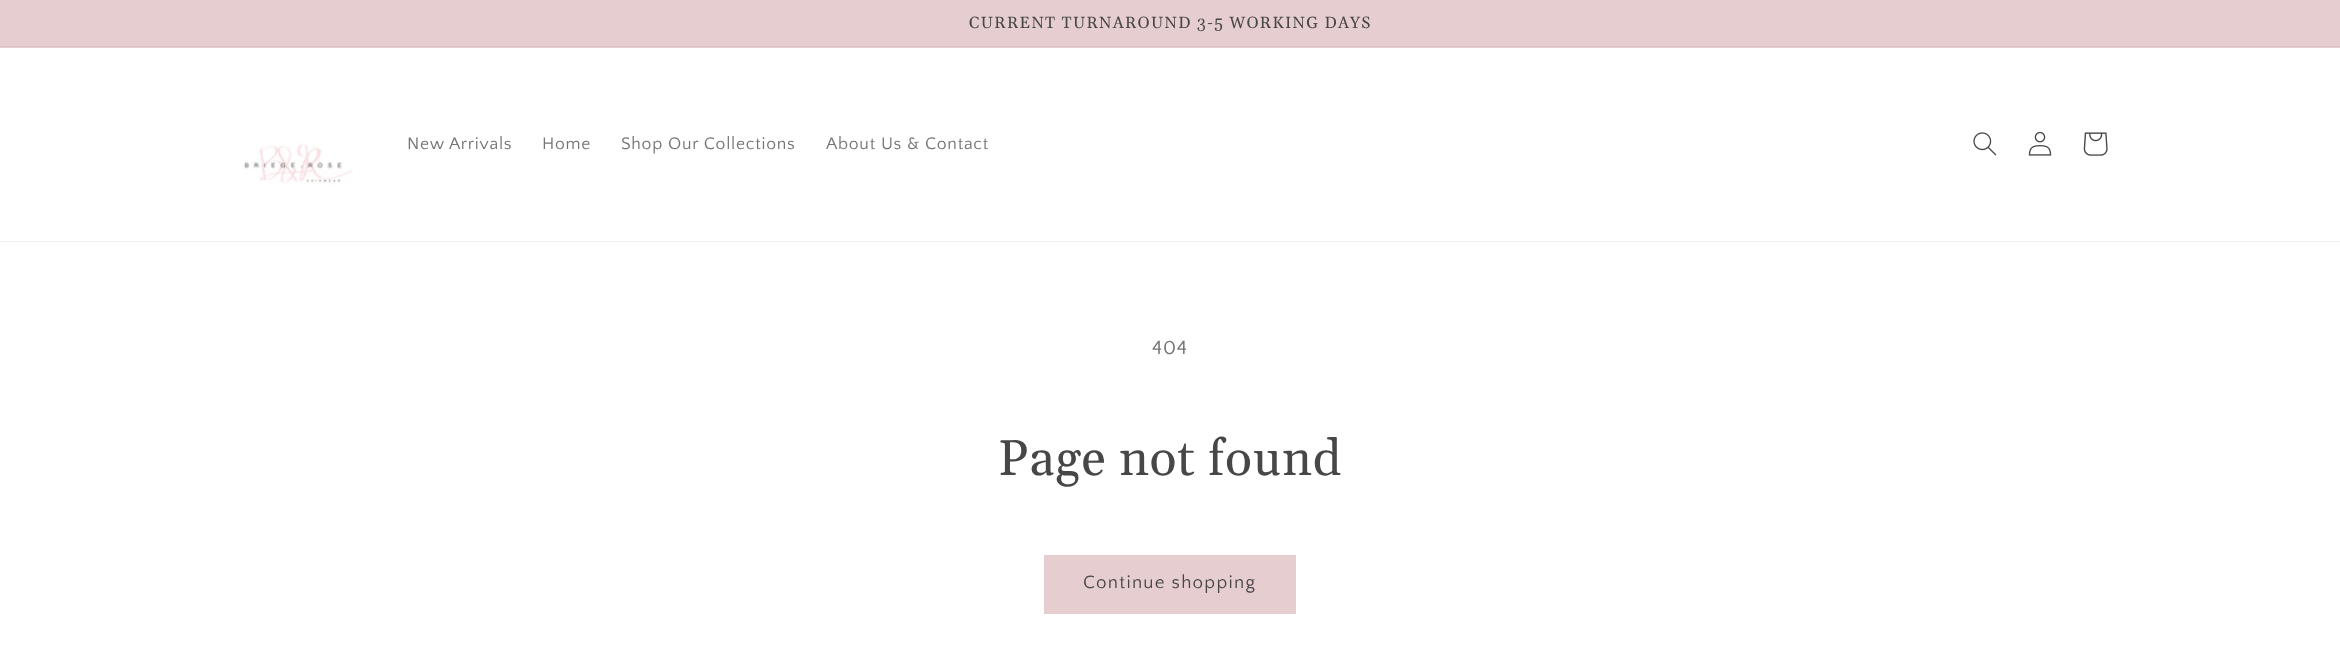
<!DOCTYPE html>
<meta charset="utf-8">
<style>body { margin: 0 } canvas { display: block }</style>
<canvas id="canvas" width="2340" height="657"></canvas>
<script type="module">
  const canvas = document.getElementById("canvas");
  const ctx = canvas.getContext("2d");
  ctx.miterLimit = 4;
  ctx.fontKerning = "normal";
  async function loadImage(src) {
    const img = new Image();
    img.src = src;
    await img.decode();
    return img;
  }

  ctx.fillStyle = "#ffffff";
  ctx.fillRect(0, 0, 2340, 657);
  ctx.fillStyle = "#e6cdd0";
  ctx.fillRect(0, 0, 2340, 48);
  ctx.fillStyle = "#d9c2c5";
  ctx.fillRect(0, 46, 2340, 1);
  ctx.letterSpacing = "1.25px";
  ctx.font = "16.25px Gelasio";
  ctx.fillStyle = "#484747";
  ctx.fillText("CURRENT TURNAROUND 3-5 WORKING DAYS", 969, 28);
  ctx.fillStyle = "#f0f0f0";
  ctx.fillRect(0, 241, 2340, 1);
  ctx.drawImage(await loadImage("img1.png"), 243, 143, 110, 42);
  ctx.letterSpacing = "0.75px";
  ctx.font = "17.5px Quattrocento Sans";
  ctx.fillStyle = "#767575";
  ctx.fillText("New Arrivals", 407, 149);
  ctx.fillText("Home", 542, 149);
  ctx.fillText("Shop Our Collections", 621, 149);
  ctx.fillText("About Us & Contact", 826, 149);
  ctx.drawImage(await loadImage("img2.png"), 1973, 132, 24, 24);
  ctx.drawImage(await loadImage("img3.png"), 2028, 131, 24, 25);
  ctx.drawImage(await loadImage("img4.png"), 2083, 132, 25, 24);
  ctx.font = "20px Quattrocento Sans";
  ctx.fillText("404", 1152, 354);
  ctx.font = "50px Gelasio";
  ctx.fillStyle = "#484747";
  ctx.fillText("Page not found", 998, 475);
  ctx.strokeStyle = "#e6cdd0";
  ctx.strokeRect(1044.5, 555.5, 251, 58);
  ctx.fillStyle = "#e6cdd0";
  ctx.fillRect(1045, 556, 250, 57);
  ctx.letterSpacing = "1.25px";
  ctx.font = "18.75px Quattrocento Sans";
  ctx.fillStyle = "#484747";
  ctx.fillText("Continue shopping", 1083, 588);
</script>
